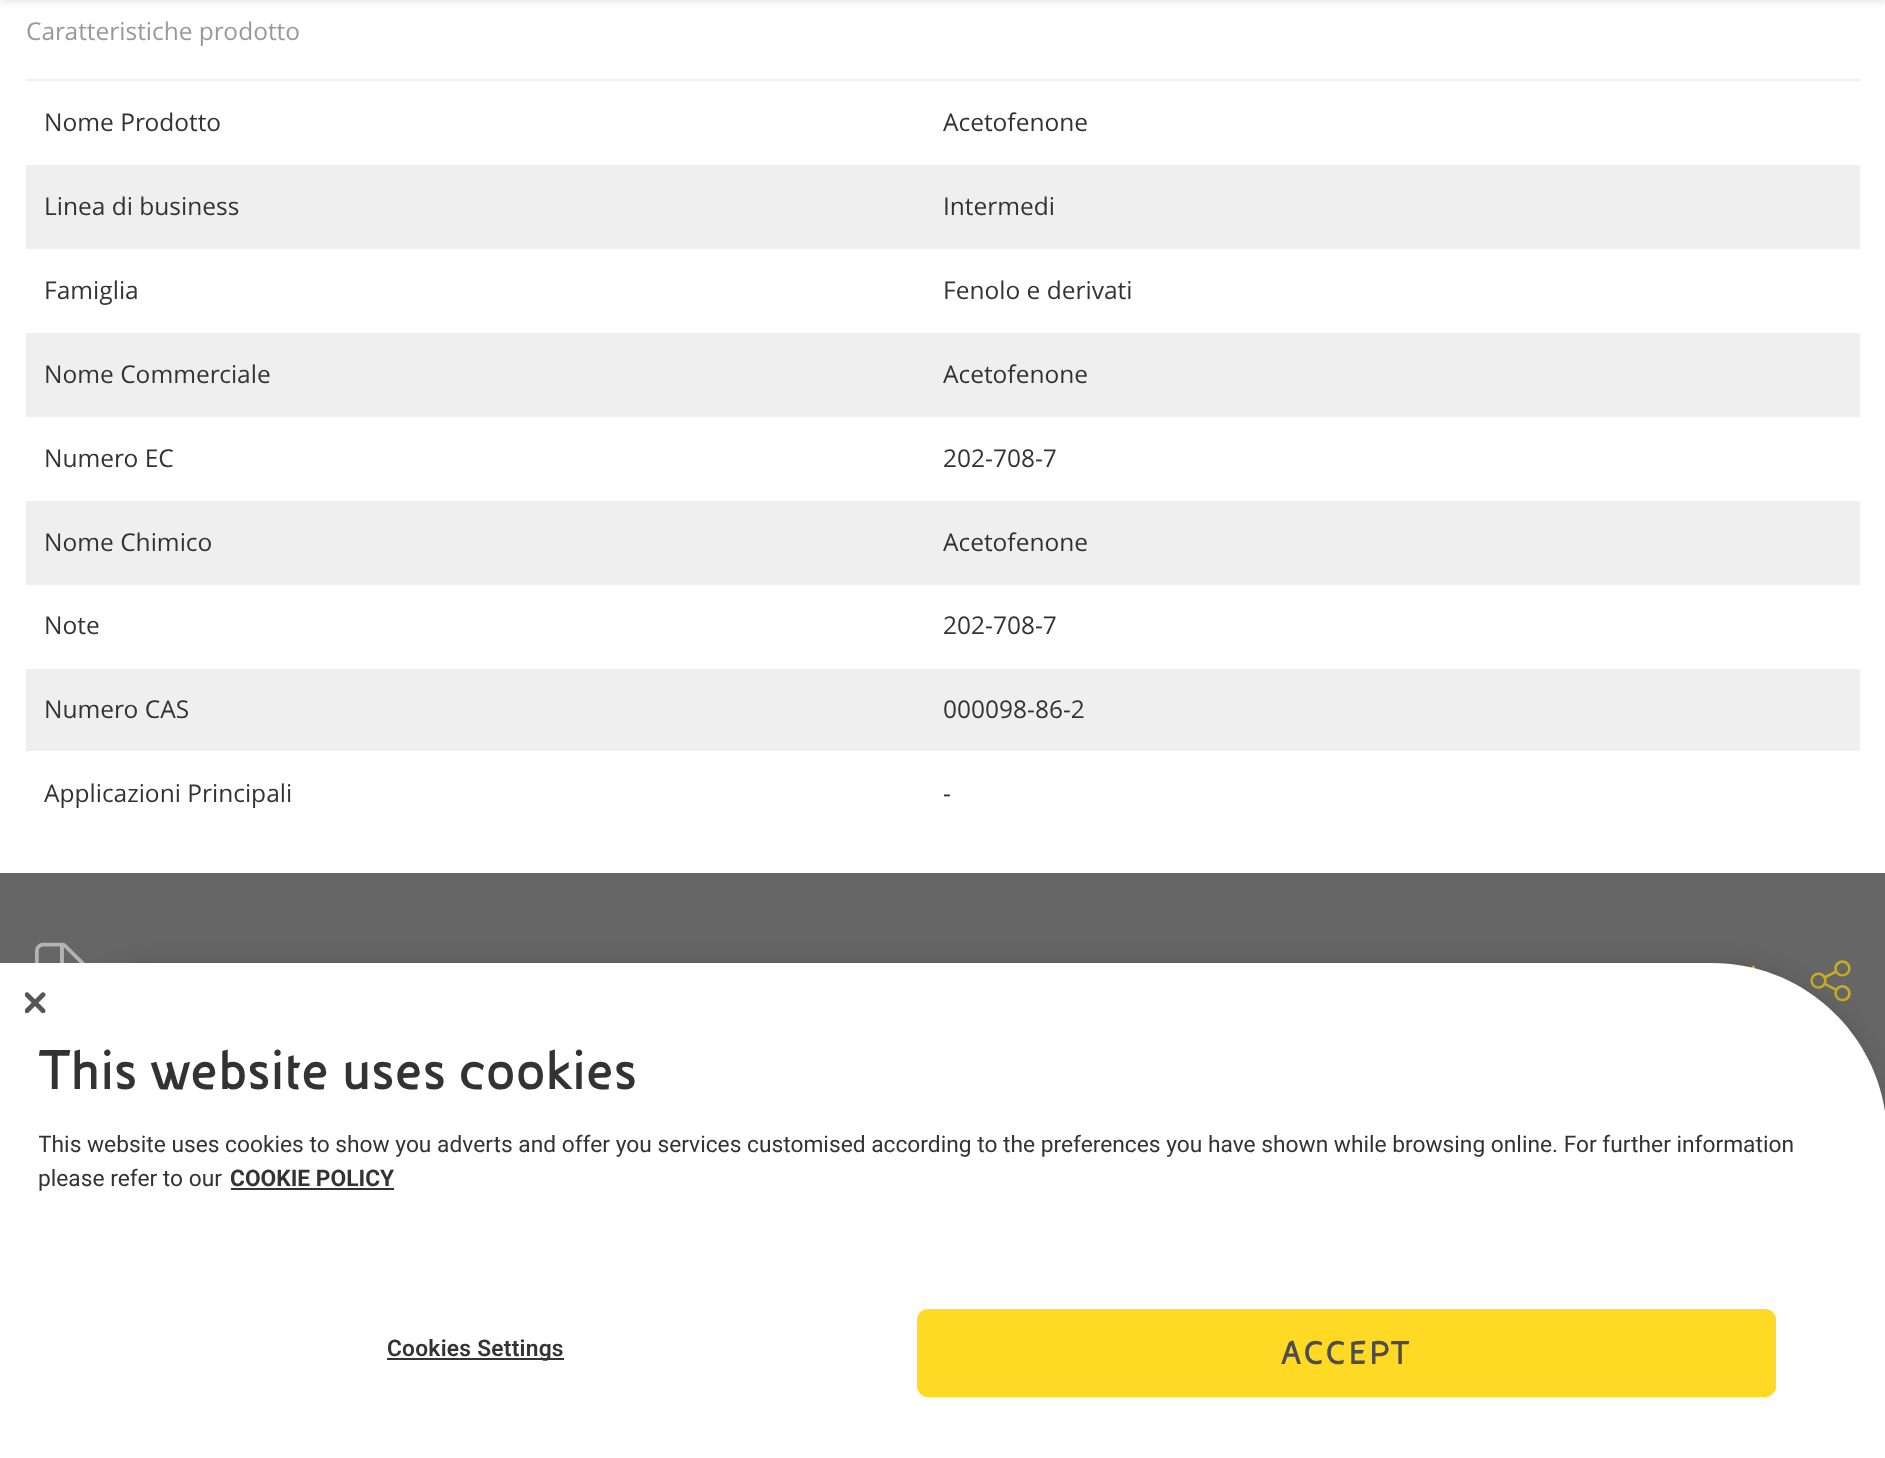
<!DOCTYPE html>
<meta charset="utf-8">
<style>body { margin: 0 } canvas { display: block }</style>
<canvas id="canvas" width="1885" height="1458"></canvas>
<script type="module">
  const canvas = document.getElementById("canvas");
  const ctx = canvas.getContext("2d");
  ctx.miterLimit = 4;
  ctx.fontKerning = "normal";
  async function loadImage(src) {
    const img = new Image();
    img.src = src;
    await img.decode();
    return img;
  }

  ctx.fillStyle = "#ffffff";
  ctx.fillRect(0, 0, 1885, 1458);
  ctx.fillStyle = "rgba(51, 51, 51, 0.2)";
  ctx.filter = "blur(4.5px)";
  ctx.beginPath();
  ctx.rect(0, -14, 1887, 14);
  ctx.fill();
  ctx.filter = "none";
  ctx.font = "24.5px Open Sans";
  ctx.fillStyle = "#999999";
  ctx.fillText("Caratteristiche prodotto", 26, 40);
  ctx.fillStyle = "#efefef";
  ctx.fillRect(26, 79, 1834, 2);
  ctx.fillStyle = "#333333";
  ctx.fillText("Nome Prodotto", 44, 131);
  ctx.fillText("Acetofenone", 943, 131);
  ctx.fillStyle = "#efefef";
  ctx.fillRect(26, 165, 1834, 84);
  ctx.fillStyle = "#333333";
  ctx.fillText("Linea di business", 44, 215);
  ctx.fillText("Intermedi", 943, 215);
  ctx.fillText("Famiglia", 44, 299);
  ctx.fillText("Fenolo e derivati", 943, 299);
  ctx.fillStyle = "#efefef";
  ctx.fillRect(26, 333, 1834, 84);
  ctx.fillStyle = "#333333";
  ctx.fillText("Nome Commerciale", 44, 383);
  ctx.fillText("Acetofenone", 943, 383);
  ctx.fillText("Numero EC", 44, 467);
  ctx.fillText("202-708-7", 943, 467);
  ctx.fillStyle = "#efefef";
  ctx.fillRect(26, 501, 1834, 84);
  ctx.fillStyle = "#333333";
  ctx.fillText("Nome Chimico", 44, 551);
  ctx.fillText("Acetofenone", 943, 551);
  ctx.fillText("Note", 44, 634);
  ctx.fillText("202-708-7", 943, 634);
  ctx.fillStyle = "#efefef";
  ctx.fillRect(26, 669, 1834, 82);
  ctx.fillStyle = "#333333";
  ctx.fillText("Numero CAS", 44, 718);
  ctx.fillText("000098-86-2", 943, 718);
  ctx.fillText("Applicazioni Principali", 44, 802);
  ctx.fillText("-", 943, 802);
  ctx.fillStyle = "#666666";
  ctx.fillRect(0, 873, 1885, 221);
  ctx.drawImage(await loadImage("img1.png"), 35, 942, 50, 21);
  ctx.drawImage(await loadImage("img2.png"), 1752, 965, 3, 4);
  ctx.drawImage(await loadImage("img3.png"), 1810, 960, 41, 42);
  ctx.fillRect(1881, 1094, 4, 18);
  ctx.fillStyle = "rgba(0, 0, 0, 0.1)";
  ctx.filter = "blur(9.5px)";
  ctx.beginPath();
  ctx.roundRect(0, 959, 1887, 497, 175);
  ctx.fill();
  ctx.filter = "none";
  ctx.fillStyle = "#ffffff";
  ctx.beginPath();
  ctx.moveTo(0, 963);
  ctx.lineTo(1712, 963);
  ctx.bezierCurveTo(1808.5, 963, 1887, 1041.5, 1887, 1138);
  ctx.lineTo(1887, 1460);
  ctx.lineTo(0, 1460);
  ctx.closePath();
  ctx.fill();
  ctx.drawImage(await loadImage("img4.png"), 25, 992, 21, 21);
  ctx.font = "bold 59.5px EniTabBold";
  ctx.fillStyle = "#333333";
  ctx.fillText("This website uses cookies", 38, 1089);
  ctx.save();
  ctx.beginPath();
  ctx.rect(39, 1033, 1809, 162);
  ctx.clip();
  ctx.font = "22.75px Roboto";
  ctx.fillText("This website uses cookies to show you adverts and offer you services customised according to the preferences you have shown while browsing online. For further information", 38, 1152);
  ctx.restore();
  ctx.font = "22.75px Roboto";
  ctx.fillText("please refer to our", 38, 1186);
  ctx.font = "bold 22.75px Roboto";
  ctx.fillText("COOKIE POLICY", 230, 1186);
  ctx.fillRect(231, 1188, 163, 2);
  ctx.fillRect(387, 1358, 177, 2);
  ctx.letterSpacing = "0.25px";
  ctx.font = "600 22.75px Roboto";
  ctx.fillText("Cookies Settings", 387, 1356);
  ctx.fillStyle = "#ffd924";
  ctx.beginPath();
  ctx.roundRect(918, 1310, 857, 86, 10);
  ctx.fill();
  ctx.strokeStyle = "#ffd924";
  ctx.lineWidth = 2;
  ctx.stroke();
  ctx.letterSpacing = "2px";
  ctx.font = "bold 35px EniTabBold";
  ctx.fillStyle = "#4d4d4d";
  ctx.fillText("ACCEPT", 1281, 1364);
</script>
